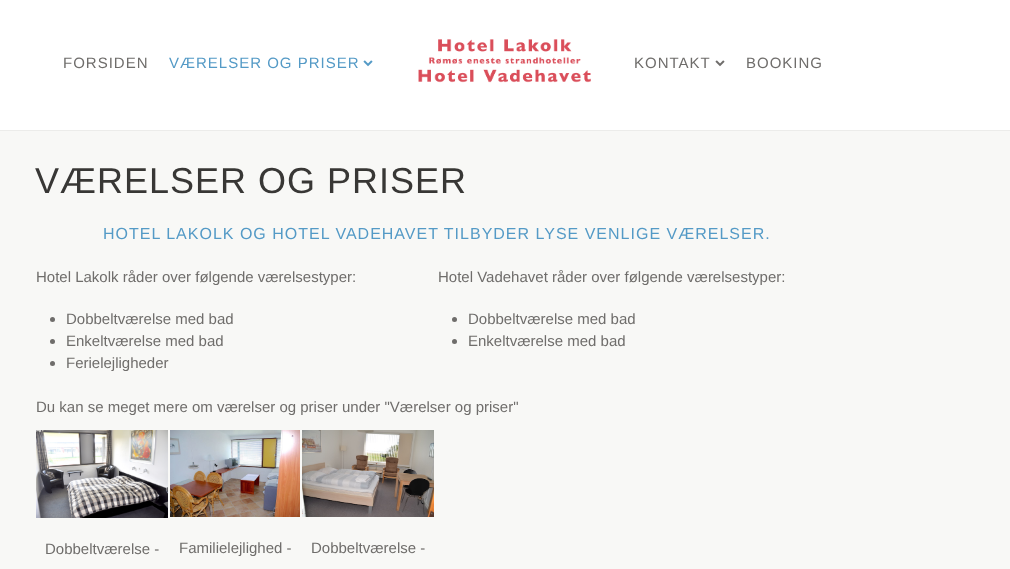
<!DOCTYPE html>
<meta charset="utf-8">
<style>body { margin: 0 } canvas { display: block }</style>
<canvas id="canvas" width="1010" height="569"></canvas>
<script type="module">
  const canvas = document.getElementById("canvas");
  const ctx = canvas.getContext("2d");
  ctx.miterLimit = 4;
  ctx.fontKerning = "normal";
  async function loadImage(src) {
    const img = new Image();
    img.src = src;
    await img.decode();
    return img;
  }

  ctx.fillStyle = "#f8f8f6";
  ctx.fillRect(0, 0, 1010, 569);
  ctx.fillStyle = "#ececea";
  ctx.fillRect(0, 130, 1010, 1);
  ctx.fillStyle = "#ffffff";
  ctx.fillRect(0, 0, 1010, 130);
  ctx.drawImage(await loadImage("img1.png"), 418, 39, 173, 44);
  ctx.letterSpacing = "1px";
  ctx.font = "15px Liberation Sans";
  ctx.fillStyle = "#6f6d6b";
  ctx.fillText("FORSIDEN", 63, 68);
  ctx.fillStyle = "#549ac6";
  ctx.fillText("VÆRELSER OG PRISER", 169, 68);
  ctx.drawImage(await loadImage("img2.png"), 363, 60, 10, 7);
  ctx.fillStyle = "#6f6d6b";
  ctx.fillText("KONTAKT", 634, 68);
  ctx.drawImage(await loadImage("img3.png"), 715, 60, 10, 7);
  ctx.fillText("BOOKING", 746, 68);
  ctx.font = "36px Liberation Sans";
  ctx.fillStyle = "#383735";
  ctx.fillText("VÆRELSER OG PRISER", 35, 193);
  ctx.font = "16px Liberation Sans";
  ctx.fillStyle = "#549ac6";
  ctx.fillText("HOTEL LAKOLK OG HOTEL VADEHAVET TILBYDER LYSE VENLIGE VÆRELSER.", 103, 239);
  ctx.letterSpacing = "0px";
  ctx.font = "15px Liberation Sans";
  ctx.fillStyle = "#6f6d6b";
  ctx.fillText("Hotel Lakolk råder over følgende værelsestyper:", 36, 282);
  ctx.beginPath();
  ctx.arc(52.5, 319.5, 2.5, 0, Math.PI * 2);
  ctx.fill();
  ctx.fillText("Dobbeltværelse med bad", 66, 324);
  ctx.beginPath();
  ctx.arc(52.5, 341.5, 2.5, 0, Math.PI * 2);
  ctx.fill();
  ctx.fillText("Enkeltværelse med bad", 66, 346);
  ctx.beginPath();
  ctx.arc(52.5, 363.5, 2.5, 0, Math.PI * 2);
  ctx.fill();
  ctx.fillText("Ferielejligheder", 66, 368);
  ctx.fillText("Hotel Vadehavet råder over følgende værelsestyper:", 438, 282);
  ctx.beginPath();
  ctx.arc(454.5, 319.5, 2.5, 0, Math.PI * 2);
  ctx.fill();
  ctx.fillText("Dobbeltværelse med bad", 468, 324);
  ctx.beginPath();
  ctx.arc(454.5, 341.5, 2.5, 0, Math.PI * 2);
  ctx.fill();
  ctx.fillText("Enkeltværelse med bad", 468, 346);
  ctx.fillText("Du kan se meget mere om værelser og priser under \"Værelser og priser\"", 36, 412);
  ctx.drawImage(await loadImage("img4.png"), 36, 430, 132, 88);
  ctx.fillText("Dobbeltværelse -", 45, 554);
  ctx.drawImage(await loadImage("img5.png"), 170, 430, 130, 87);
  ctx.fillText("Familielejlighed -", 179, 553);
  ctx.drawImage(await loadImage("img6.png"), 302, 430, 132, 87);
  ctx.fillText("Dobbeltværelse -", 311, 553);
</script>
